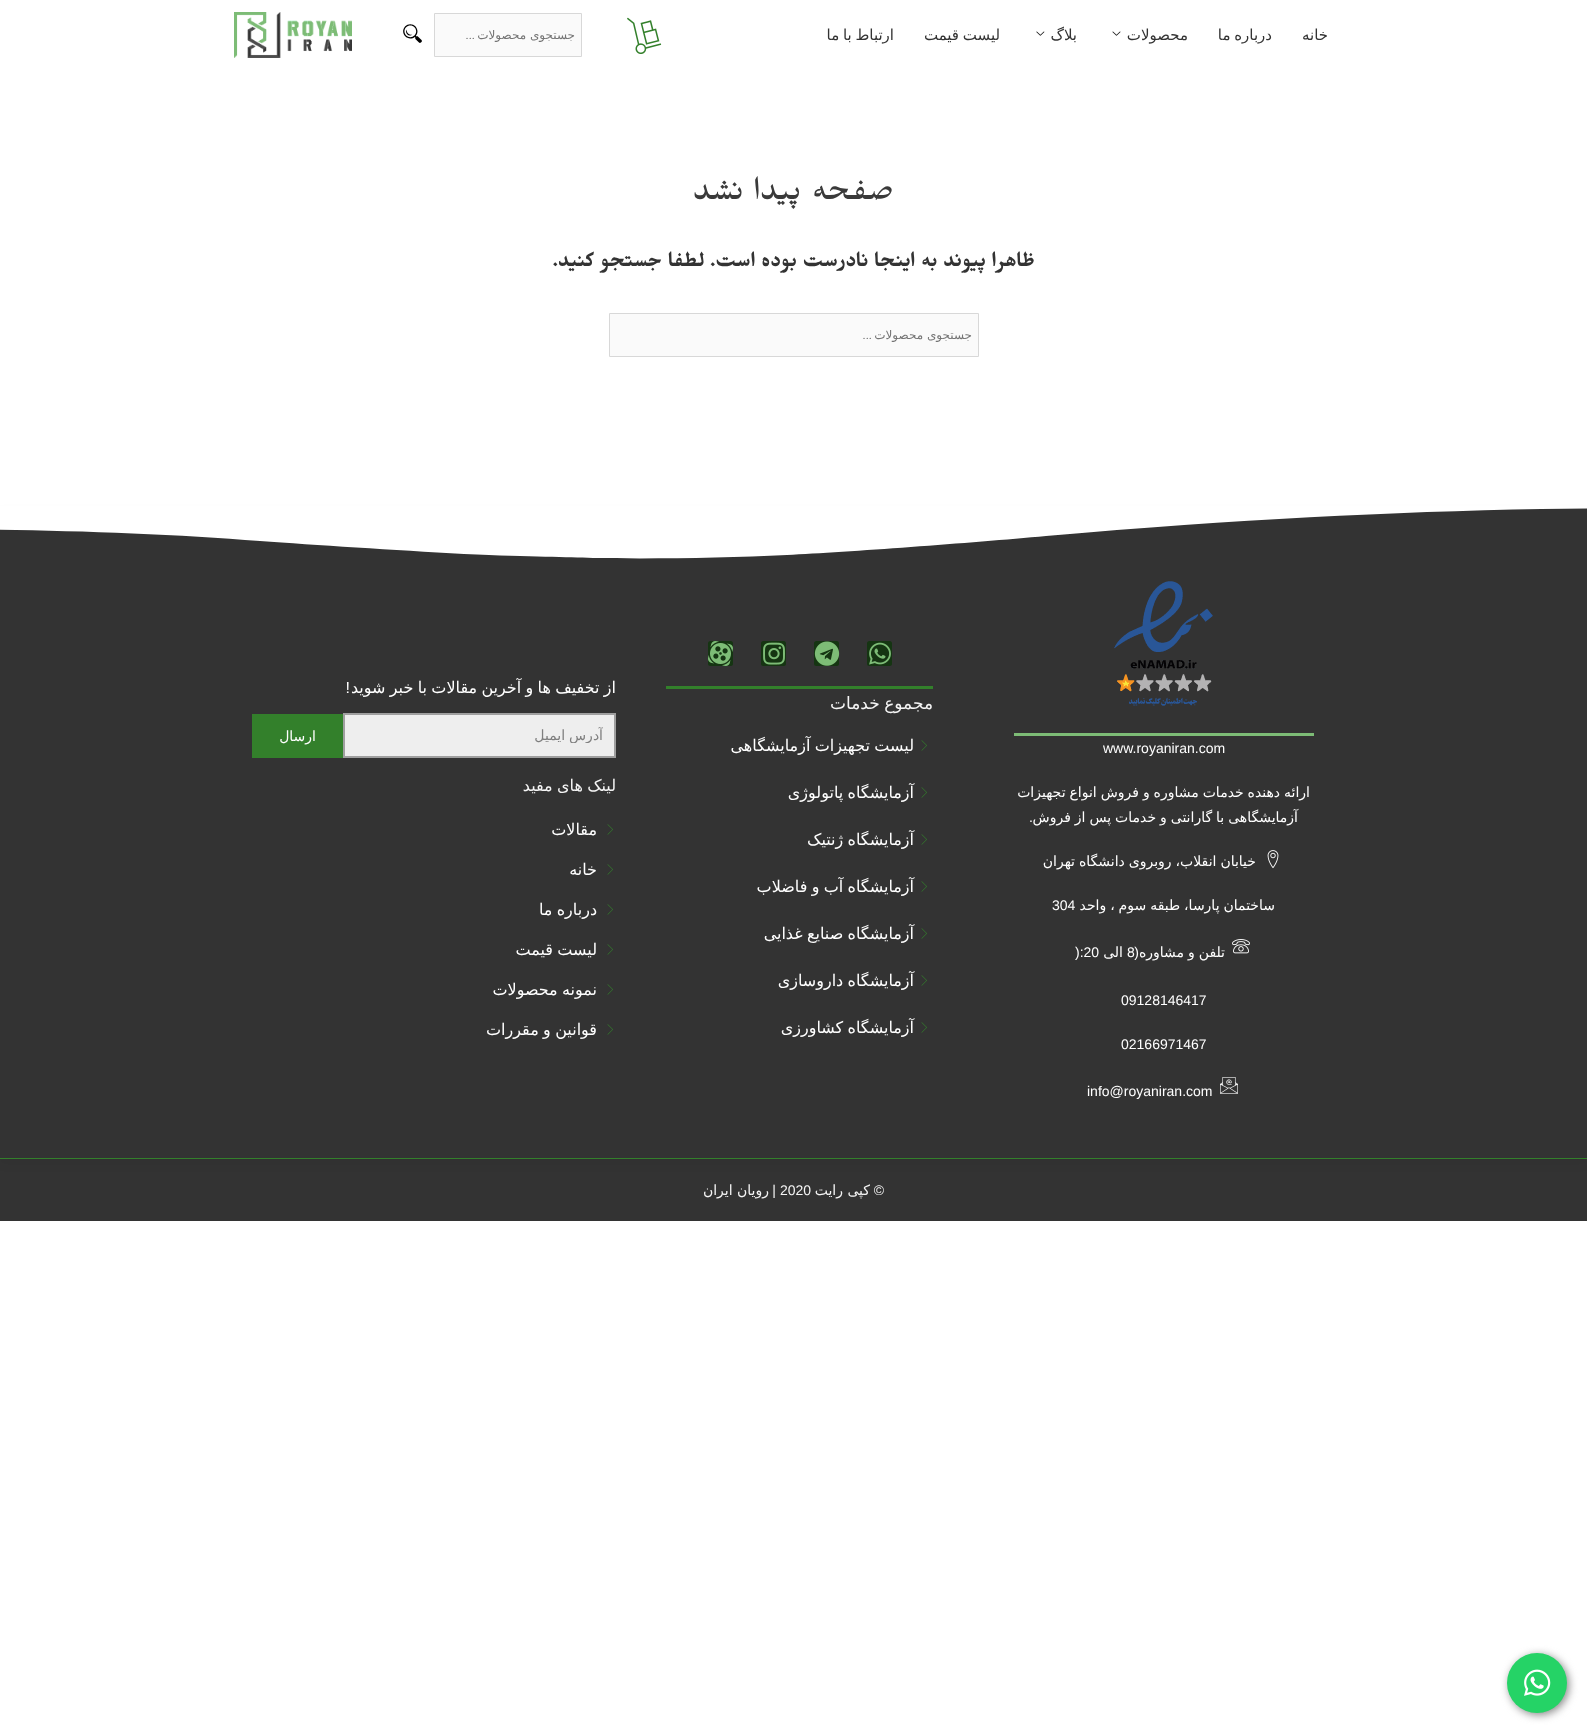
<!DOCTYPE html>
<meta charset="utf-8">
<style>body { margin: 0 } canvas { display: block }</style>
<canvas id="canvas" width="1587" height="1733"></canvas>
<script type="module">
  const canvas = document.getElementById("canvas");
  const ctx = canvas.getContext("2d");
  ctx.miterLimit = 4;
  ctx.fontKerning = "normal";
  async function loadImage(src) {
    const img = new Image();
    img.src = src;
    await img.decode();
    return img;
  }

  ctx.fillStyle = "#ffffff";
  ctx.fillRect(0, 0, 1587, 1733);
  ctx.save();
  ctx.beginPath();
  ctx.rect(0, 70, 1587, 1);
  ctx.clip();
  ctx.fillStyle = "rgba(0, 0, 0, 0.5)";
  ctx.filter = "blur(0.5px)";
  ctx.beginPath();
  ctx.rect(0, 0, 1587, 70);
  ctx.fill();
  ctx.filter = "none";
  ctx.restore();
  ctx.direction = "rtl";
  ctx.font = "15px DejaVu Sans";
  ctx.fillStyle = "#333333";
  ctx.fillText("خانه", 1328, 40);
  ctx.wordSpacing = "-1px";
  ctx.fillText("درباره ما", 1272, 40);
  ctx.wordSpacing = "0px";
  ctx.fillText("محصولات", 1188, 40);
  ctx.drawImage(await loadImage("img1.png"), 1112, 31, 9, 5);
  ctx.fillText("بلاگ", 1077, 40);
  ctx.drawImage(await loadImage("img2.png"), 1036, 31, 9, 5);
  ctx.wordSpacing = "-1px";
  ctx.fillText("لیست قیمت", 1000, 40);
  ctx.fillText("ارتباط با ما", 894, 40);
  ctx.drawImage(await loadImage("img3.png"), 627, 17, 35, 37);
  ctx.drawImage(await loadImage("img4.png"), 403, 24, 19, 19);
  ctx.fillStyle = "#fafafa";
  ctx.beginPath();
  ctx.rect(434.5, 13.5, 147, 43);
  ctx.fill();
  ctx.strokeStyle = "#d8d8d8";
  ctx.stroke();
  ctx.wordSpacing = "0px";
  ctx.font = "12px DejaVu Sans";
  ctx.fillStyle = "#757575";
  ctx.fillText("جستجوی محصولات", 575, 39);
  ctx.font = "12px Roboto";
  ctx.fillText("...", 475, 39);
  ctx.drawImage(await loadImage("img5.png"), 234, 12, 118, 46);
  ctx.font = "40px Mirza";
  ctx.fillStyle = "#3a3a3a";
  ctx.fillText("صفحه پیدا نشد", 894, 199);
  ctx.font = "bold 24px Mirza";
  ctx.fillStyle = "#333333";
  ctx.fillText("ظاهرا پیوند به اینجا نادرست بوده است. لطفا جستجو کنید.", 1035, 266);
  ctx.fillStyle = "#fafafa";
  ctx.beginPath();
  ctx.rect(609.5, 313.5, 369, 43);
  ctx.fill();
  ctx.stroke();
  ctx.font = "12px DejaVu Sans";
  ctx.fillStyle = "#757575";
  ctx.fillText("جستجوی محصولات", 972, 339);
  ctx.font = "12px Roboto";
  ctx.fillText("...", 872, 339);
  ctx.fillStyle = "#333333";
  ctx.fillRect(0, 1159, 1587, 62);
  ctx.fillStyle = "rgba(0, 0, 0, 0.05)";
  ctx.filter = "blur(5px)";
  ctx.beginPath();
  ctx.rect(0, 512, 1587, 652);
  ctx.fill();
  ctx.filter = "none";
  ctx.fillStyle = "#333333";
  ctx.fillRect(0, 508, 1587, 650);
  ctx.fillStyle = "#33802b";
  ctx.fillRect(0, 1158, 1587, 1);
  ctx.fillStyle = "#ffffff";
  ctx.beginPath();
  ctx.moveTo(1541, 509);
  ctx.bezierCurveTo(1389, 512, 1241, 519, 1046, 536);
  ctx.bezierCurveTo(970, 543, 848, 552, 787, 555);
  ctx.bezierCurveTo(727, 558, 652, 559, 593, 558);
  ctx.bezierCurveTo(567, 557, 535, 557, 464, 554);
  ctx.bezierCurveTo(394, 550, 315, 545, 260, 541);
  ctx.bezierCurveTo(154, 532, 16, 529, -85, 529);
  ctx.bezierCurveTo(-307, 528, -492, 545, -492, 545);
  ctx.lineTo(-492, 506);
  ctx.lineTo(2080, 506);
  ctx.lineTo(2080, 524);
  ctx.bezierCurveTo(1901, 510, 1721, 506, 1541, 509);
  ctx.closePath();
  ctx.fill();
  ctx.drawImage(await loadImage("img6.png"), 1114, 581, 99, 125);
  ctx.fillStyle = "#7dbc76";
  ctx.fillRect(1014, 733, 300, 3);
  ctx.direction = "ltr";
  ctx.font = "14px Liberation Sans";
  ctx.fillStyle = "#ffffff";
  ctx.fillText("www.royaniran.com", 1103, 753);
  ctx.wordSpacing = "-0.5px";
  ctx.direction = "rtl";
  ctx.font = "14px DejaVu Sans";
  ctx.fillText("ارائه دهنده خدمات مشاوره و فروش انواع تجهیزات", 1310, 797);
  ctx.fillText("آزمایشگاهی با گارانتی و خدمات پس از فروش", 1298, 822);
  ctx.wordSpacing = "0px";
  ctx.font = "14px Liberation Sans";
  ctx.fillText(".", 1033, 822);
  ctx.drawImage(await loadImage("img7.png"), 1267, 850, 12, 19);
  ctx.wordSpacing = "-0.5px";
  ctx.font = "14px DejaVu Sans";
  ctx.fillText("خیابان انقلاب، روبروی دانشگاه تهران", 1256, 866);
  ctx.fillText("ساختمان پارسا، طبقه سوم ، واحد", 1275, 910);
  ctx.wordSpacing = "0px";
  ctx.direction = "ltr";
  ctx.font = "14px Liberation Sans";
  ctx.fillText("304", 1052, 910);
  ctx.drawImage(await loadImage("img8.png"), 1232, 939, 18, 15);
  ctx.wordSpacing = "-0.5px";
  ctx.direction = "rtl";
  ctx.font = "14px DejaVu Sans";
  ctx.fillText("تلفن و مشاوره", 1225, 957);
  ctx.wordSpacing = "0px";
  ctx.font = "14px Liberation Sans";
  ctx.fillText("(", 1139, 957);
  ctx.direction = "ltr";
  ctx.fillText("8", 1127, 957);
  ctx.direction = "rtl";
  ctx.font = "14px DejaVu Sans";
  ctx.fillText("الی", 1123, 957);
  ctx.direction = "ltr";
  ctx.font = "14px Liberation Sans";
  ctx.fillText("):20", 1075, 957);
  ctx.fillText("09128146417", 1121, 1005);
  ctx.fillText("02166971467", 1121, 1049);
  ctx.drawImage(await loadImage("img9.png"), 1220, 1077, 18, 17);
  ctx.fillText("info@royaniran.com", 1087, 1096);
  ctx.fillStyle = "#153512";
  ctx.beginPath();
  ctx.roundRect(867, 641, 25, 25, 2.5);
  ctx.fill();
  ctx.drawImage(await loadImage("img10.png"), 869, 642, 22, 23);
  ctx.beginPath();
  ctx.roundRect(814, 641, 25, 25, 2.5);
  ctx.fill();
  ctx.drawImage(await loadImage("img11.png"), 814, 641, 26, 25);
  ctx.beginPath();
  ctx.roundRect(761, 641, 25, 25, 2.5);
  ctx.fill();
  ctx.drawImage(await loadImage("img12.png"), 763, 642, 22, 23);
  ctx.beginPath();
  ctx.roundRect(708, 641, 25, 25, 2.5);
  ctx.fill();
  ctx.drawImage(await loadImage("img13.png"), 708, 641, 25, 25);
  ctx.fillStyle = "#33802b";
  ctx.fillRect(666, 686, 267, 3);
  ctx.wordSpacing = "-1px";
  ctx.direction = "rtl";
  ctx.font = "17px DejaVu Sans";
  ctx.fillStyle = "#f5f5f5";
  ctx.fillText("مجموع خدمات", 933, 709);
  ctx.drawImage(await loadImage("img14.png"), 921, 740, 6, 11);
  ctx.wordSpacing = "-0.75px";
  ctx.font = "16px DejaVu Sans";
  ctx.fillStyle = "#ffffff";
  ctx.fillText("لیست تجهیزات آزمایشگاهی", 914, 751);
  ctx.drawImage(await loadImage("img14.png"), 921, 787, 6, 11);
  ctx.fillText("آزمایشگاه پاتولوژی", 914, 798);
  ctx.drawImage(await loadImage("img14.png"), 921, 834, 6, 11);
  ctx.fillText("آزمایشگاه ژنتیک", 914, 845);
  ctx.drawImage(await loadImage("img14.png"), 921, 881, 6, 11);
  ctx.fillText("آزمایشگاه آب و فاضلاب", 914, 892);
  ctx.drawImage(await loadImage("img14.png"), 921, 928, 6, 11);
  ctx.fillText("آزمایشگاه صنایع غذایی", 914, 939);
  ctx.drawImage(await loadImage("img14.png"), 921, 975, 6, 11);
  ctx.fillText("آزمایشگاه داروسازی", 914, 986);
  ctx.drawImage(await loadImage("img14.png"), 921, 1022, 6, 11);
  ctx.fillText("آزمایشگاه کشاورزی", 914, 1033);
  ctx.fillText("از تخفیف ها و آخرین مقالات با خبر شوید", 616, 693);
  ctx.wordSpacing = "0px";
  ctx.font = "16px Liberation Sans";
  ctx.fillText("!", 350, 693);
  ctx.fillStyle = "#eeeeee";
  ctx.beginPath();
  ctx.rect(344, 714, 271, 43);
  ctx.fill();
  ctx.strokeStyle = "#9f9f9f";
  ctx.lineWidth = 2;
  ctx.stroke();
  ctx.save();
  ctx.beginPath();
  ctx.rect(355, 727, 248, 16);
  ctx.clip();
  ctx.wordSpacing = "-0.5px";
  ctx.font = "14px DejaVu Sans";
  ctx.fillStyle = "#7e7e7e";
  ctx.fillText("آدرس ایمیل", 603, 740);
  ctx.restore();
  ctx.fillStyle = "#33802b";
  ctx.fillRect(252, 714, 91, 44);
  ctx.font = "14px DejaVu Sans";
  ctx.fillStyle = "#ffffff";
  ctx.fillText("ارسال", 316, 741);
  ctx.wordSpacing = "-0.75px";
  ctx.font = "16px DejaVu Sans";
  ctx.fillStyle = "#f5f5f5";
  ctx.fillText("لینک های مفید", 616, 791);
  ctx.drawImage(await loadImage("img14.png"), 607, 824, 6, 11);
  ctx.wordSpacing = "0px";
  ctx.fillStyle = "#ffffff";
  ctx.fillText("مقالات", 597, 835);
  ctx.drawImage(await loadImage("img14.png"), 607, 864, 6, 11);
  ctx.fillText("خانه", 597, 875);
  ctx.drawImage(await loadImage("img14.png"), 607, 904, 6, 11);
  ctx.wordSpacing = "-0.75px";
  ctx.fillText("درباره ما", 597, 915);
  ctx.drawImage(await loadImage("img14.png"), 607, 944, 6, 11);
  ctx.fillText("لیست قیمت", 597, 955);
  ctx.drawImage(await loadImage("img14.png"), 607, 984, 6, 11);
  ctx.fillText("نمونه محصولات", 597, 995);
  ctx.drawImage(await loadImage("img14.png"), 607, 1024, 6, 11);
  ctx.fillText("قوانین و مقررات", 597, 1035);
  ctx.wordSpacing = "0px";
  ctx.font = "14px Liberation Sans";
  ctx.fillStyle = "#f5f5f5";
  ctx.fillText("©", 884, 1195);
  ctx.font = "14px DejaVu Sans";
  ctx.fillText("کپی رایت", 870, 1195);
  ctx.direction = "ltr";
  ctx.font = "14px Liberation Sans";
  ctx.fillText("2020", 780, 1195);
  ctx.direction = "rtl";
  ctx.fillText("|", 776, 1195);
  ctx.font = "14px DejaVu Sans";
  ctx.fillText("رویان ایران", 769, 1195);
  ctx.fillStyle = "#888888";
  ctx.filter = "blur(4px)";
  ctx.beginPath();
  ctx.roundRect(1509, 1655, 60, 60, 30);
  ctx.fill();
  ctx.filter = "none";
  ctx.fillStyle = "#25d366";
  ctx.beginPath();
  ctx.arc(1537, 1683, 30, 0, Math.PI * 2);
  ctx.fill();
  ctx.drawImage(await loadImage("img15.png"), 1524, 1669, 27, 27);
</script>
